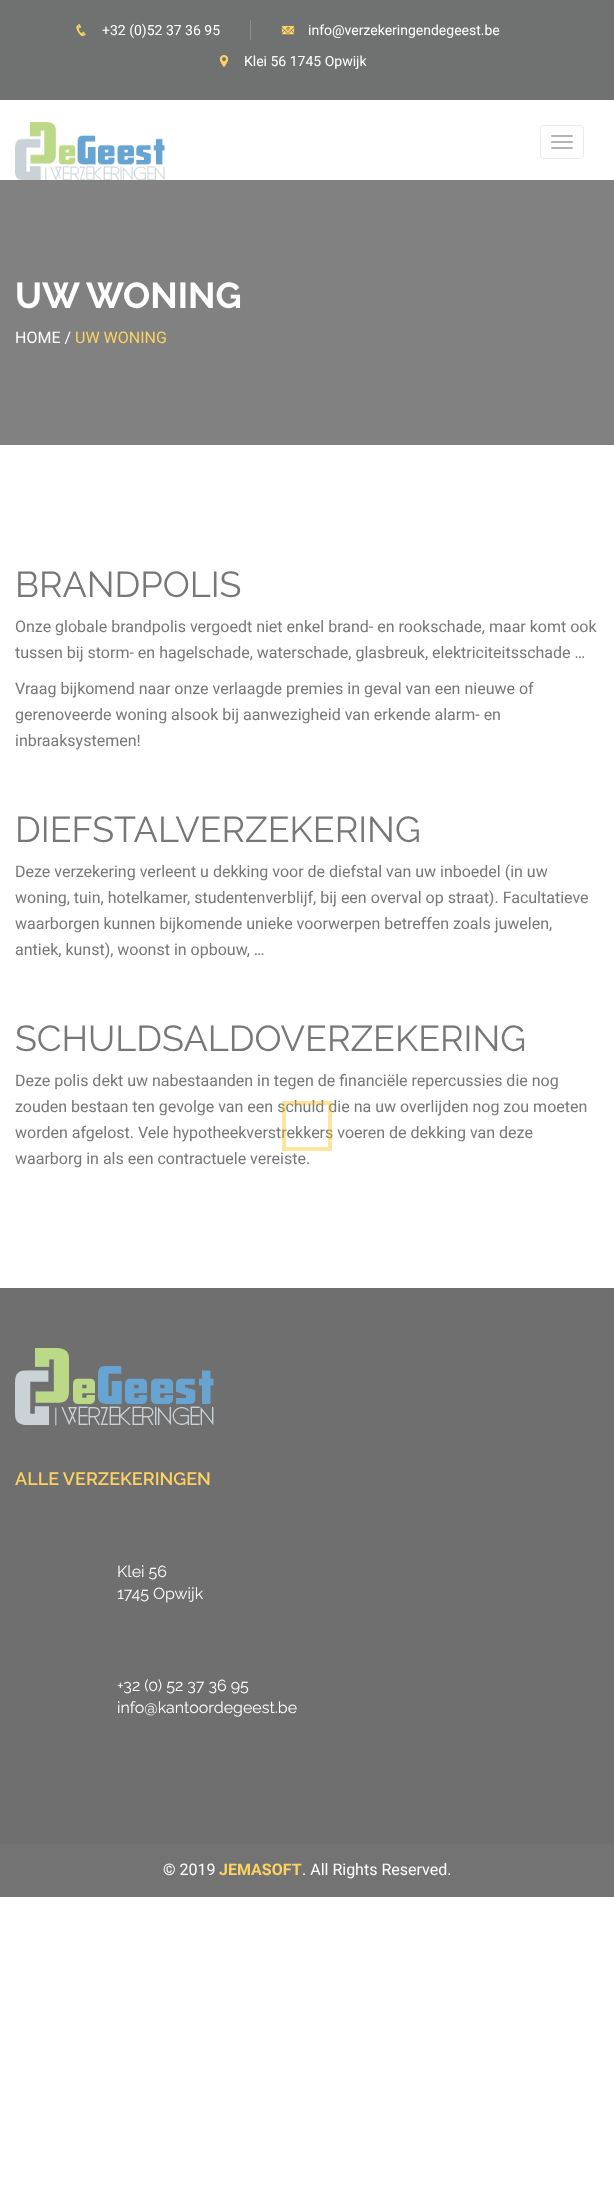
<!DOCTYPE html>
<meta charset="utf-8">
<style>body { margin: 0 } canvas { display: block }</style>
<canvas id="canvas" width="614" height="2202"></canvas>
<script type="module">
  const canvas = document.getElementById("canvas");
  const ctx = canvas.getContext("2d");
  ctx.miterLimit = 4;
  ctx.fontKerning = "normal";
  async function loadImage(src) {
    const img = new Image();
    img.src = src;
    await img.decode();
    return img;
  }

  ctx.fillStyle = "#ffffff";
  ctx.fillRect(0, 0, 614, 2202);
  ctx.fillStyle = "#707272";
  ctx.fillRect(0, 0, 614, 100);
  ctx.fillStyle = "#8b8c8d";
  ctx.fillRect(250, 20, 1, 20);
  ctx.drawImage(await loadImage("img1.png"), 76, 24, 10, 13);
  ctx.font = "14px Roboto";
  ctx.fillStyle = "#ffffff";
  ctx.fillText("+32 (0)52 37 36 95", 102, 35);
  ctx.drawImage(await loadImage("img2.png"), 281, 25, 14, 10);
  ctx.fillText("info@verzekeringendegeest.be", 308, 35);
  ctx.drawImage(await loadImage("img3.png"), 219, 55, 10, 13);
  ctx.fillText("Klei 56 1745 Opwijk", 244, 66);
  ctx.drawImage(await loadImage("img4.png"), 15, 122, 150, 59);
  ctx.beginPath();
  ctx.roundRect(540.5, 125.5, 43, 33, 3.5);
  ctx.strokeStyle = "#eaeaea";
  ctx.stroke();
  ctx.fillStyle = "#b5b5b5";
  ctx.beginPath();
  ctx.roundRect(551, 135, 22, 2, 1);
  ctx.fill();
  ctx.beginPath();
  ctx.roundRect(551, 141, 22, 2, 1);
  ctx.fill();
  ctx.beginPath();
  ctx.roundRect(551, 147, 22, 2, 1);
  ctx.fill();
  ctx.fillStyle = "rgba(97, 97, 97, 0.8)";
  ctx.fillRect(0, 180, 614, 265);
  ctx.font = "bold 36px Raleway";
  ctx.fillStyle = "#ffffff";
  ctx.fillText("UW WONING", 15, 308);
  ctx.font = "16px Roboto";
  ctx.fillText("HOME /", 15, 343);
  ctx.fillStyle = "#fcd262";
  ctx.fillText("UW WONING", 75, 343);
  ctx.font = "36px Raleway";
  ctx.fillStyle = "#777777";
  ctx.fillText("BRANDPOLIS", 15, 597);
  ctx.font = "16px Roboto";
  ctx.fillText("Onze globale brandpolis vergoedt niet enkel brand- en rookschade, maar komt ook", 15, 632);
  ctx.fillText("tussen bij storm- en hagelschade, waterschade, glasbreuk, elektriciteitsschade …", 15, 658);
  ctx.fillText("Vraag bijkomend naar onze verlaagde premies in geval van een nieuwe of", 15, 694);
  ctx.fillText("gerenoveerde woning alsook bij aanwezigheid van erkende alarm- en", 15, 720);
  ctx.fillText("inbraaksystemen!", 15, 746);
  ctx.font = "36px Raleway";
  ctx.fillText("DIEFSTALVERZEKERING", 15, 842);
  ctx.font = "16px Roboto";
  ctx.fillText("Deze verzekering verleent u dekking voor de diefstal van uw inboedel (in uw", 15, 877);
  ctx.fillText("woning, tuin, hotelkamer, studentenverblijf, bij een overval op straat). Facultatieve", 15, 903);
  ctx.fillText("waarborgen kunnen bijkomende unieke voorwerpen betreffen zoals juwelen,", 15, 929);
  ctx.fillText("antiek, kunst), woonst in opbouw, …", 15, 955);
  ctx.font = "36px Raleway";
  ctx.fillText("SCHULDSALDOVERZEKERING", 15, 1051);
  ctx.font = "16px Roboto";
  ctx.fillText("Deze polis dekt uw nabestaanden in tegen de financiële repercussies die nog", 15, 1086);
  ctx.fillText("zouden bestaan ten gevolge van een schuld die na uw overlijden nog zou moeten", 15, 1112);
  ctx.fillText("worden afgelost. Vele hypotheekverstrekkers voeren de dekking van deze", 15, 1138);
  ctx.fillText("waarborg in als een contractuele vereiste.", 15, 1164);
  ctx.strokeStyle = "rgba(250, 183, 2, 0.38)";
  ctx.lineWidth = 4;
  ctx.strokeRect(284, 1103, 46, 46);
  ctx.fillStyle = "#6f6f6f";
  ctx.fillRect(0, 1288, 614, 556);
  ctx.drawImage(await loadImage("img5.png"), 15, 1348, 199, 78);
  ctx.font = "600 18px Raleway";
  ctx.fillStyle = "#fcd262";
  ctx.fillText("ALLE VERZEKERINGEN", 15, 1485);
  ctx.font = "16px Raleway";
  ctx.fillStyle = "#ffffff";
  ctx.fillText("Klei 56", 117, 1577);
  ctx.fillText("1745 Opwijk", 117, 1599);
  ctx.fillText("+32 (0) 52 37 36 95", 117, 1691);
  ctx.fillText("info@kantoordegeest.be", 117, 1713);
  ctx.fillStyle = "#747373";
  ctx.fillRect(0, 1844, 614, 53);
  ctx.font = "16px Roboto";
  ctx.fillStyle = "#ffffff";
  ctx.fillText("© 2019", 163, 1875);
  ctx.font = "bold 16px Roboto";
  ctx.fillStyle = "#fcd262";
  ctx.fillText("JEMASOFT", 219, 1875);
  ctx.font = "16px Roboto";
  ctx.fillStyle = "#ffffff";
  ctx.fillText(". All Rights Reserved.", 302, 1875);
</script>
